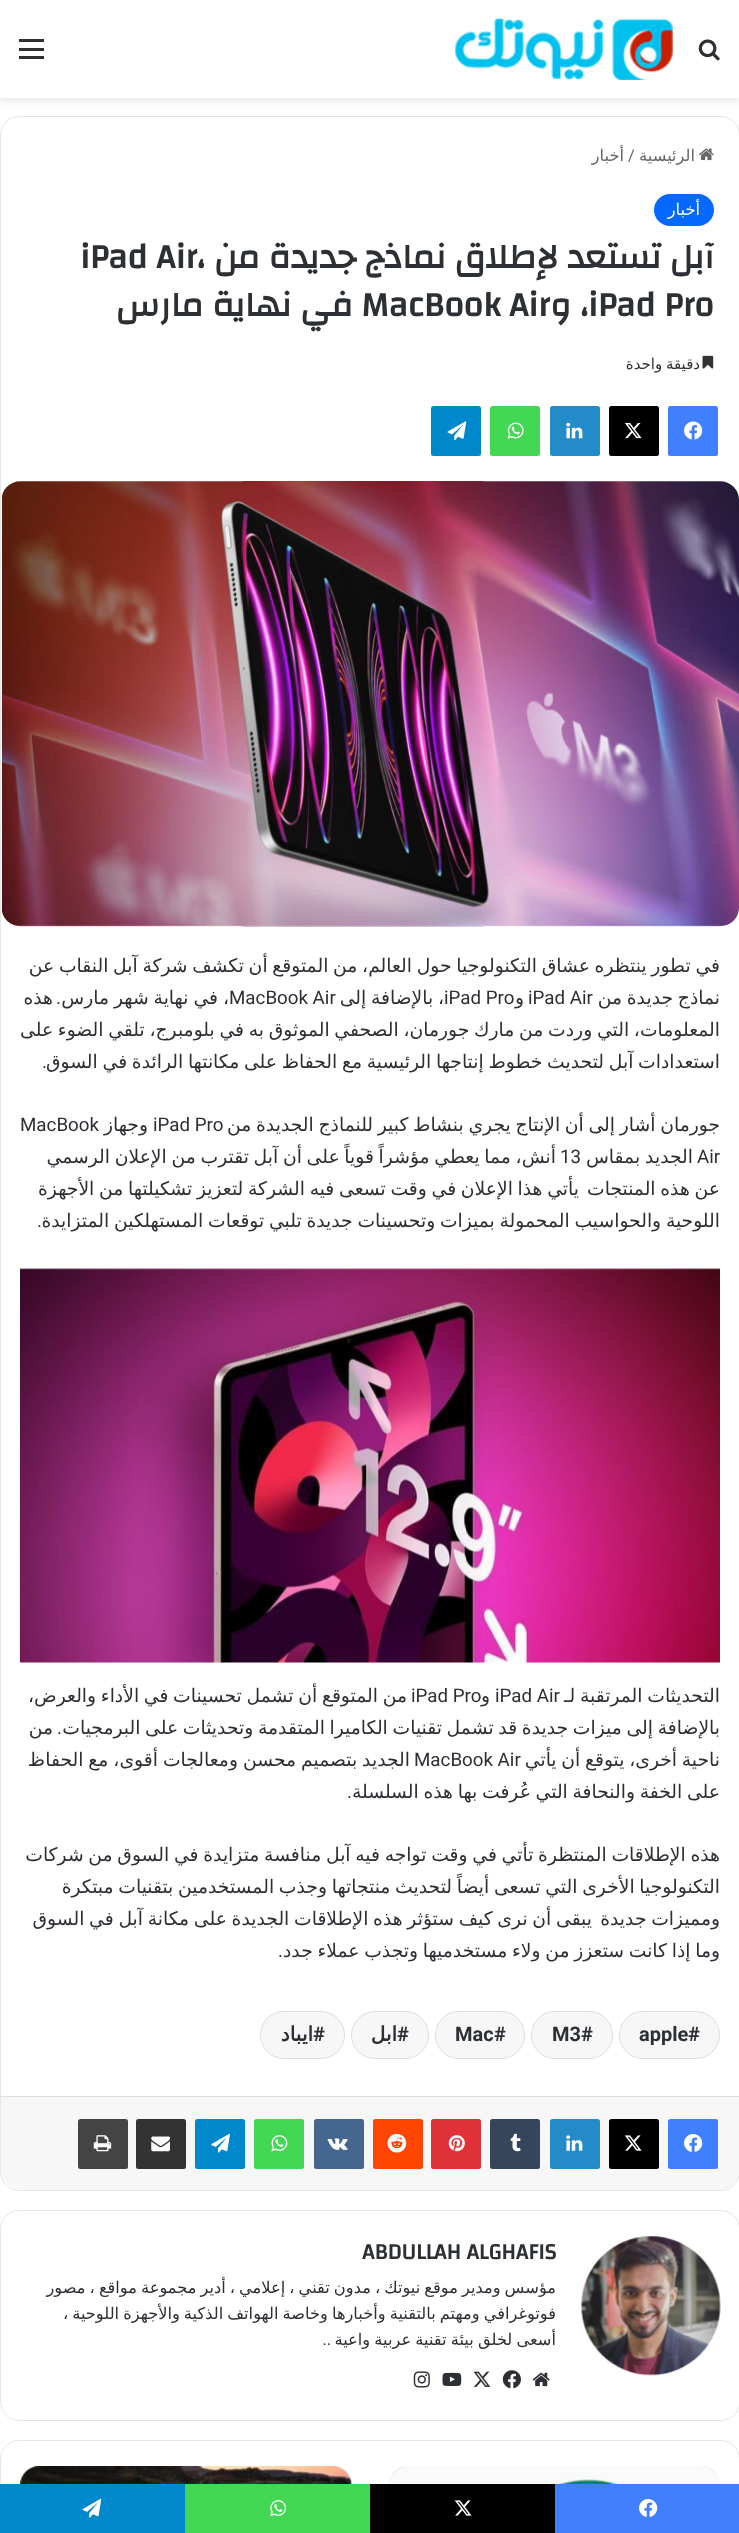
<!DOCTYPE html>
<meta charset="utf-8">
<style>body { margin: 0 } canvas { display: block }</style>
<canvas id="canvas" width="739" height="2533"></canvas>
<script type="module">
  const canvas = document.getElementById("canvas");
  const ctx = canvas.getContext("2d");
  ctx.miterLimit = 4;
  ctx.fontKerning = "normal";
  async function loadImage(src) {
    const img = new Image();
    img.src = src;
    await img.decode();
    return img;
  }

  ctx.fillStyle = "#ffffff";
  ctx.fillRect(0, 0, 739, 2533);
  ctx.fillStyle = "rgba(0, 0, 0, 0.1)";
  ctx.filter = "blur(4.5px)";
  ctx.beginPath();
  ctx.rect(0, 4, 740, 97);
  ctx.fill();
  ctx.filter = "none";
  ctx.fillStyle = "#ffffff";
  ctx.fillRect(0, 0, 739, 98);
  ctx.drawImage(await loadImage("img1.png"), 698, 39, 22, 22);
  ctx.drawImage(await loadImage("img2.png"), 455, 18, 218, 62);
  ctx.fillStyle = "#2c2f34";
  ctx.fillRect(19, 48, 25, 3);
  ctx.fillRect(19, 39, 25, 3);
  ctx.fillRect(19, 56, 25, 3);
  ctx.beginPath();
  ctx.roundRect(0.5, 116.5, 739, 2074, 18.5);
  ctx.strokeStyle = "#e6e6e6";
  ctx.stroke();
  ctx.drawImage(await loadImage("img3.png"), 699, 148, 15, 13);
  ctx.direction = "rtl";
  ctx.font = "16.25px DejaVu Sans";
  ctx.fillStyle = "#666666";
  ctx.fillText("الرئيسية", 695, 161);
  ctx.direction = "ltr";
  ctx.font = "16.25px Roboto";
  ctx.fillText("/", 628, 161);
  ctx.direction = "rtl";
  ctx.font = "16.25px DejaVu Sans";
  ctx.fillText("أخبار", 624, 161);
  ctx.fillStyle = "#0669ff";
  ctx.beginPath();
  ctx.roundRect(654, 194, 60, 32, 16);
  ctx.fill();
  ctx.fillStyle = "#ffffff";
  ctx.fillText("أخبار", 700, 215);
  ctx.font = "bold 35px Changa";
  ctx.fillStyle = "#2c2f34";
  ctx.fillText("آبل تستعد لإطلاق نماذج جديدة من", 714, 268);
  ctx.direction = "ltr";
  ctx.fillText("iPad Air،", 80, 268);
  ctx.fillText("iPad Pro", 588, 316);
  ctx.direction = "rtl";
  ctx.fillText("، و", 588, 316);
  ctx.direction = "ltr";
  ctx.fillText("MacBook Air", 361, 316);
  ctx.direction = "rtl";
  ctx.fillText("في نهاية مارس", 353, 316);
  ctx.drawImage(await loadImage("img4.png"), 702, 355, 12, 14);
  ctx.wordSpacing = "-1px";
  ctx.font = "15px DejaVu Sans";
  ctx.fillStyle = "#333333";
  ctx.fillText("دقيقة واحدة", 700, 369);
  ctx.fillStyle = "#4080ff";
  ctx.beginPath();
  ctx.roundRect(668, 406, 50, 50, 2.5);
  ctx.fill();
  ctx.drawImage(await loadImage("img5.png"), 684, 421, 19, 19);
  ctx.fillStyle = "#000000";
  ctx.beginPath();
  ctx.roundRect(609, 406, 50, 50, 2.5);
  ctx.fill();
  ctx.drawImage(await loadImage("img6.png"), 624, 422, 18, 17);
  ctx.fillStyle = "#238cc8";
  ctx.beginPath();
  ctx.roundRect(550, 406, 50, 50, 2.5);
  ctx.fill();
  ctx.drawImage(await loadImage("img7.png"), 566, 422, 17, 17);
  ctx.fillStyle = "#43d854";
  ctx.beginPath();
  ctx.roundRect(490, 406, 50, 50, 2.5);
  ctx.fill();
  ctx.drawImage(await loadImage("img8.png"), 507, 422, 17, 17);
  ctx.fillStyle = "#0088cc";
  ctx.beginPath();
  ctx.roundRect(431, 406, 50, 50, 2.5);
  ctx.fill();
  ctx.drawImage(await loadImage("img9.png"), 447, 421, 20, 20);
  ctx.drawImage(await loadImage("img10.png"), 2, 481, 737, 446);
  ctx.wordSpacing = "-1.25px";
  ctx.font = "18.75px DejaVu Sans";
  ctx.fillStyle = "#2c2f34";
  ctx.fillText("في تطور ينتظره عشاق التكنولوجيا حول العالم، من المتوقع أن تكشف شركة آبل النقاب عن", 720, 972);
  ctx.fillText("نماذج جديدة من", 720, 1004);
  ctx.wordSpacing = "0px";
  ctx.direction = "ltr";
  ctx.font = "18.75px Roboto";
  ctx.fillText("iPad Air", 528, 1004);
  ctx.wordSpacing = "-1.25px";
  ctx.direction = "rtl";
  ctx.font = "18.75px DejaVu Sans";
  ctx.fillText("، بالإضافة إلى", 444, 1004);
  ctx.wordSpacing = "0px";
  ctx.direction = "ltr";
  ctx.font = "18.75px Roboto";
  ctx.fillText("iPad Pro", 444, 1004);
  ctx.direction = "rtl";
  ctx.font = "18.75px DejaVu Sans";
  ctx.fillText("و", 524, 1004);
  ctx.wordSpacing = "-1px";
  ctx.fillText("، في نهاية شهر مارس", 229, 1004);
  ctx.wordSpacing = "0px";
  ctx.direction = "ltr";
  ctx.font = "18.75px Roboto";
  ctx.fillText("MacBook Air", 229, 1004);
  ctx.direction = "rtl";
  ctx.fillText(".", 61, 1004);
  ctx.font = "18.75px DejaVu Sans";
  ctx.fillText("هذه", 53, 1004);
  ctx.wordSpacing = "-1.25px";
  ctx.fillText("المعلومات، التي وردت من مارك جورمان، الصحفي الموثوق به في بلومبرج، تلقي الضوء على", 720, 1036);
  ctx.fillText("استعدادات آبل لتحديث خطوط إنتاجها الرئيسية مع الحفاظ على مكانتها الرائدة في السوق", 720, 1068);
  ctx.wordSpacing = "0px";
  ctx.font = "18.75px Roboto";
  ctx.fillText(".", 47, 1068);
  ctx.wordSpacing = "-1.25px";
  ctx.font = "18.75px DejaVu Sans";
  ctx.fillText("جورمان أشار إلى أن الإنتاج يجري بنشاط كبير للنماذج الجديدة من", 720, 1131);
  ctx.wordSpacing = "0px";
  ctx.direction = "ltr";
  ctx.font = "18.75px Roboto";
  ctx.fillText("iPad Pro", 153, 1131);
  ctx.direction = "rtl";
  ctx.font = "18.75px DejaVu Sans";
  ctx.fillText("وجهاز", 148, 1131);
  ctx.direction = "ltr";
  ctx.font = "18.75px Roboto";
  ctx.fillText("MacBook", 20, 1131);
  ctx.fillText("Air", 697, 1163);
  ctx.wordSpacing = "-1px";
  ctx.direction = "rtl";
  ctx.font = "18.75px DejaVu Sans";
  ctx.fillText("الجديد بمقاس", 693, 1163);
  ctx.wordSpacing = "-1.25px";
  ctx.fillText("أنش، مما يعطي مؤشراً قوياً على أن آبل تقترب من الإعلان الرسمي", 556, 1163);
  ctx.wordSpacing = "0px";
  ctx.direction = "ltr";
  ctx.font = "18.75px Roboto";
  ctx.fillText("13", 560, 1163);
  ctx.wordSpacing = "-1.25px";
  ctx.direction = "rtl";
  ctx.font = "18.75px DejaVu Sans";
  ctx.fillText("عن هذه المنتجات", 720, 1195);
  ctx.fillText("يأتي هذا الإعلان في وقت تسعى فيه الشركة لتعزيز تشكيلتها من الأجهزة", 579, 1195);
  ctx.fillText("اللوحية والحواسيب المحمولة بميزات وتحسينات جديدة تلبي توقعات المستهلكين المتزايدة", 720, 1227);
  ctx.wordSpacing = "0px";
  ctx.font = "18.75px Roboto";
  ctx.fillText(".", 42, 1227);
  ctx.drawImage(await loadImage("img11.png"), 20, 1268, 700, 395);
  ctx.wordSpacing = "-1.25px";
  ctx.font = "18.75px DejaVu Sans";
  ctx.fillText("التحديثات المرتقبة لـ", 720, 1702);
  ctx.wordSpacing = "0px";
  ctx.direction = "ltr";
  ctx.font = "18.75px Roboto";
  ctx.fillText("iPad Air", 495, 1702);
  ctx.wordSpacing = "-1.25px";
  ctx.direction = "rtl";
  ctx.font = "18.75px DejaVu Sans";
  ctx.fillText("من المتوقع أن تشمل تحسينات في الأداء والعرض،", 407, 1702);
  ctx.wordSpacing = "0px";
  ctx.direction = "ltr";
  ctx.font = "18.75px Roboto";
  ctx.fillText("iPad Pro", 411, 1702);
  ctx.direction = "rtl";
  ctx.font = "18.75px DejaVu Sans";
  ctx.fillText("و", 490, 1702);
  ctx.wordSpacing = "-1.25px";
  ctx.fillText("بالإضافة إلى ميزات جديدة قد تشمل تقنيات الكاميرا المتقدمة وتحديثات على البرمجيات", 720, 1734);
  ctx.wordSpacing = "0px";
  ctx.font = "18.75px Roboto";
  ctx.fillText(".", 62, 1734);
  ctx.font = "18.75px DejaVu Sans";
  ctx.fillText("من", 53, 1734);
  ctx.wordSpacing = "-1.25px";
  ctx.fillText("ناحية أخرى، يتوقع أن يأتي", 720, 1766);
  ctx.wordSpacing = "-1px";
  ctx.fillText("الجديد بتصميم محسن ومعالجات أقوى، مع الحفاظ", 410, 1766);
  ctx.wordSpacing = "0px";
  ctx.direction = "ltr";
  ctx.font = "18.75px Roboto";
  ctx.fillText("MacBook Air", 414, 1766);
  ctx.wordSpacing = "-1.25px";
  ctx.direction = "rtl";
  ctx.font = "18.75px DejaVu Sans";
  ctx.fillText("على الخفة والنحافة التي عُرفت بها هذه السلسلة", 720, 1798);
  ctx.wordSpacing = "0px";
  ctx.font = "18.75px Roboto";
  ctx.fillText(".", 352, 1798);
  ctx.wordSpacing = "-1.25px";
  ctx.font = "18.75px DejaVu Sans";
  ctx.fillText("هذه الإطلاقات المنتظرة تأتي في وقت تواجه فيه آبل منافسة متزايدة في السوق من شركات", 720, 1861);
  ctx.fillText("التكنولوجيا الأخرى التي تسعى أيضاً لتحديث منتجاتها وجذب المستخدمين بتقنيات مبتكرة", 720, 1893);
  ctx.fillText("ومميزات جديدة", 720, 1925);
  ctx.fillText("يبقى أن نرى كيف ستؤثر هذه الإطلاقات الجديدة على مكانة آبل في السوق", 592, 1925);
  ctx.fillText("وما إذا كانت ستعزز من ولاء مستخدميها وتجذب عملاء جدد", 720, 1957);
  ctx.wordSpacing = "0px";
  ctx.font = "18.75px Roboto";
  ctx.fillText(".", 283, 1957);
  ctx.fillStyle = "#f7f7f7";
  ctx.beginPath();
  ctx.roundRect(619, 2011, 101, 48, 24);
  ctx.fill();
  ctx.beginPath();
  ctx.roundRect(619.5, 2011.5, 100, 47, 23.5);
  ctx.strokeStyle = "rgba(0, 0, 0, 0.1)";
  ctx.stroke();
  ctx.direction = "ltr";
  ctx.font = "bold 20px Roboto";
  ctx.fillStyle = "#2c2f34";
  ctx.fillText("#", 688, 2041);
  ctx.fillText("apple", 639, 2041);
  ctx.fillStyle = "#f7f7f7";
  ctx.beginPath();
  ctx.roundRect(531, 2011, 82, 48, 24);
  ctx.fill();
  ctx.beginPath();
  ctx.roundRect(531.5, 2011.5, 81, 47, 23.5);
  ctx.stroke();
  ctx.fillStyle = "#2c2f34";
  ctx.fillText("#", 581, 2041);
  ctx.fillText("M3", 552, 2041);
  ctx.fillStyle = "#f7f7f7";
  ctx.beginPath();
  ctx.roundRect(435, 2011, 90, 48, 24);
  ctx.fill();
  ctx.beginPath();
  ctx.roundRect(435.5, 2011.5, 89, 47, 23.5);
  ctx.stroke();
  ctx.fillStyle = "#2c2f34";
  ctx.fillText("#", 494, 2041);
  ctx.fillText("Mac", 455, 2041);
  ctx.fillStyle = "#f7f7f7";
  ctx.beginPath();
  ctx.roundRect(351, 2011, 78, 48, 24);
  ctx.fill();
  ctx.beginPath();
  ctx.roundRect(351.5, 2011.5, 77, 47, 23.5);
  ctx.stroke();
  ctx.fillStyle = "#2c2f34";
  ctx.fillText("#", 397, 2041);
  ctx.direction = "rtl";
  ctx.font = "bold 20px DejaVu Sans";
  ctx.fillText("ابل", 397, 2041);
  ctx.fillStyle = "#f7f7f7";
  ctx.beginPath();
  ctx.roundRect(260, 2011, 85, 48, 24);
  ctx.fill();
  ctx.beginPath();
  ctx.roundRect(260.5, 2011.5, 84, 47, 23.5);
  ctx.stroke();
  ctx.direction = "ltr";
  ctx.font = "bold 20px Roboto";
  ctx.fillStyle = "#2c2f34";
  ctx.fillText("#", 313, 2041);
  ctx.direction = "rtl";
  ctx.font = "bold 20px DejaVu Sans";
  ctx.fillText("ايباد", 313, 2041);
  ctx.fillStyle = "#f7f7f7";
  ctx.beginPath();
  ctx.roundRect(1, 2096, 738, 94, [0, 0, 19, 19]);
  ctx.fill();
  ctx.fillStyle = "#dedede";
  ctx.fillRect(1, 2096, 738, 1);
  ctx.fillStyle = "#4080ff";
  ctx.beginPath();
  ctx.roundRect(668, 2119, 50, 50, 2.5);
  ctx.fill();
  ctx.drawImage(await loadImage("img12.png"), 684, 2134, 19, 18);
  ctx.fillStyle = "#000000";
  ctx.beginPath();
  ctx.roundRect(609, 2119, 50, 50, 2.5);
  ctx.fill();
  ctx.drawImage(await loadImage("img13.png"), 624, 2135, 18, 16);
  ctx.fillStyle = "#238cc8";
  ctx.beginPath();
  ctx.roundRect(550, 2119, 50, 50, 2.5);
  ctx.fill();
  ctx.drawImage(await loadImage("img14.png"), 566, 2135, 17, 16);
  ctx.fillStyle = "#35465c";
  ctx.beginPath();
  ctx.roundRect(490, 2119, 50, 50, 2.5);
  ctx.fill();
  ctx.drawImage(await loadImage("img15.png"), 510, 2133, 11, 19);
  ctx.fillStyle = "#e13138";
  ctx.beginPath();
  ctx.roundRect(431, 2119, 50, 50, 2.5);
  ctx.fill();
  ctx.drawImage(await loadImage("img16.png"), 448, 2135, 17, 17);
  ctx.fillStyle = "#ff4500";
  ctx.beginPath();
  ctx.roundRect(373, 2119, 50, 50, 2.5);
  ctx.fill();
  ctx.drawImage(await loadImage("img17.png"), 387, 2133, 20, 20);
  ctx.fillStyle = "#45668e";
  ctx.beginPath();
  ctx.roundRect(314, 2119, 50, 50, 2.5);
  ctx.fill();
  ctx.drawImage(await loadImage("img18.png"), 327, 2138, 21, 12);
  ctx.fillStyle = "#43d854";
  ctx.beginPath();
  ctx.roundRect(254, 2119, 50, 50, 2.5);
  ctx.fill();
  ctx.drawImage(await loadImage("img19.png"), 271, 2135, 17, 17);
  ctx.fillStyle = "#0088cc";
  ctx.beginPath();
  ctx.roundRect(195, 2119, 50, 50, 2.5);
  ctx.fill();
  ctx.drawImage(await loadImage("img20.png"), 211, 2133, 19, 20);
  ctx.fillStyle = "#333333";
  ctx.beginPath();
  ctx.roundRect(136, 2119, 50, 50, 2.5);
  ctx.fill();
  ctx.drawImage(await loadImage("img21.png"), 151, 2136, 19, 16);
  ctx.fillStyle = "#444444";
  ctx.beginPath();
  ctx.roundRect(78, 2119, 50, 50, 2.5);
  ctx.fill();
  ctx.drawImage(await loadImage("img22.png"), 93, 2135, 19, 17);
  ctx.beginPath();
  ctx.roundRect(0.5, 2210.5, 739, 210, 18.5);
  ctx.strokeStyle = "#e6e6e6";
  ctx.stroke();
  ctx.drawImage(await loadImage("img23.png"), 581, 2236, 140, 140);
  ctx.direction = "ltr";
  ctx.font = "bold 22.5px Changa";
  ctx.fillStyle = "#2c2f34";
  ctx.fillText("ABDULLAH ALGHAFIS", 362, 2259);
  ctx.wordSpacing = "-1.1px";
  ctx.direction = "rtl";
  ctx.font = "16.25px DejaVu Sans";
  ctx.fillText("مؤسس ومدير موقع نيوتك ، مدون تقني ، إعلامي ، أدير مجموعة مواقع ، مصور", 556, 2293);
  ctx.fillText("فوتوغرافي ومهتم بالتقنية وأخبارها وخاصة الهواتف الذكية والأجهزة اللوحية ،", 556, 2319);
  ctx.wordSpacing = "-1px";
  ctx.fillText("أسعى لخلق بيئة تقنية عربية واعية", 556, 2345);
  ctx.wordSpacing = "0px";
  ctx.font = "16.25px Roboto";
  ctx.fillText("..", 331, 2345);
  ctx.drawImage(await loadImage("img24.png"), 532, 2372, 18, 15);
  ctx.drawImage(await loadImage("img25.png"), 502, 2370, 19, 19);
  ctx.drawImage(await loadImage("img26.png"), 473, 2371, 18, 16);
  ctx.drawImage(await loadImage("img27.png"), 442, 2372, 20, 15);
  ctx.drawImage(await loadImage("img28.png"), 413, 2371, 17, 17);
  ctx.beginPath();
  ctx.roundRect(0.5, 2440.5, 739, 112, 18.5);
  ctx.stroke();
  ctx.fillStyle = "#cccccc";
  ctx.beginPath();
  ctx.roundRect(389, 2466, 331, 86, 19);
  ctx.fill();
  ctx.drawImage(await loadImage("img29.png"), 389, 2466, 331, 18);
  ctx.beginPath();
  ctx.roundRect(20, 2466, 331, 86, 19);
  ctx.fill();
  ctx.drawImage(await loadImage("img30.png"), 20, 2466, 332, 18);
  ctx.fillStyle = "#4080ff";
  ctx.fillRect(555, 2484, 184, 49);
  ctx.drawImage(await loadImage("img12.png"), 639, 2499, 19, 18);
  ctx.fillStyle = "#000000";
  ctx.fillRect(370, 2484, 185, 49);
  ctx.drawImage(await loadImage("img13.png"), 454, 2500, 18, 16);
  ctx.fillStyle = "#43d854";
  ctx.fillRect(185, 2484, 185, 49);
  ctx.drawImage(await loadImage("img31.png"), 270, 2500, 17, 17);
  ctx.fillStyle = "#0088cc";
  ctx.fillRect(0, 2484, 185, 49);
  ctx.drawImage(await loadImage("img32.png"), 82, 2498, 20, 20);
</script>
